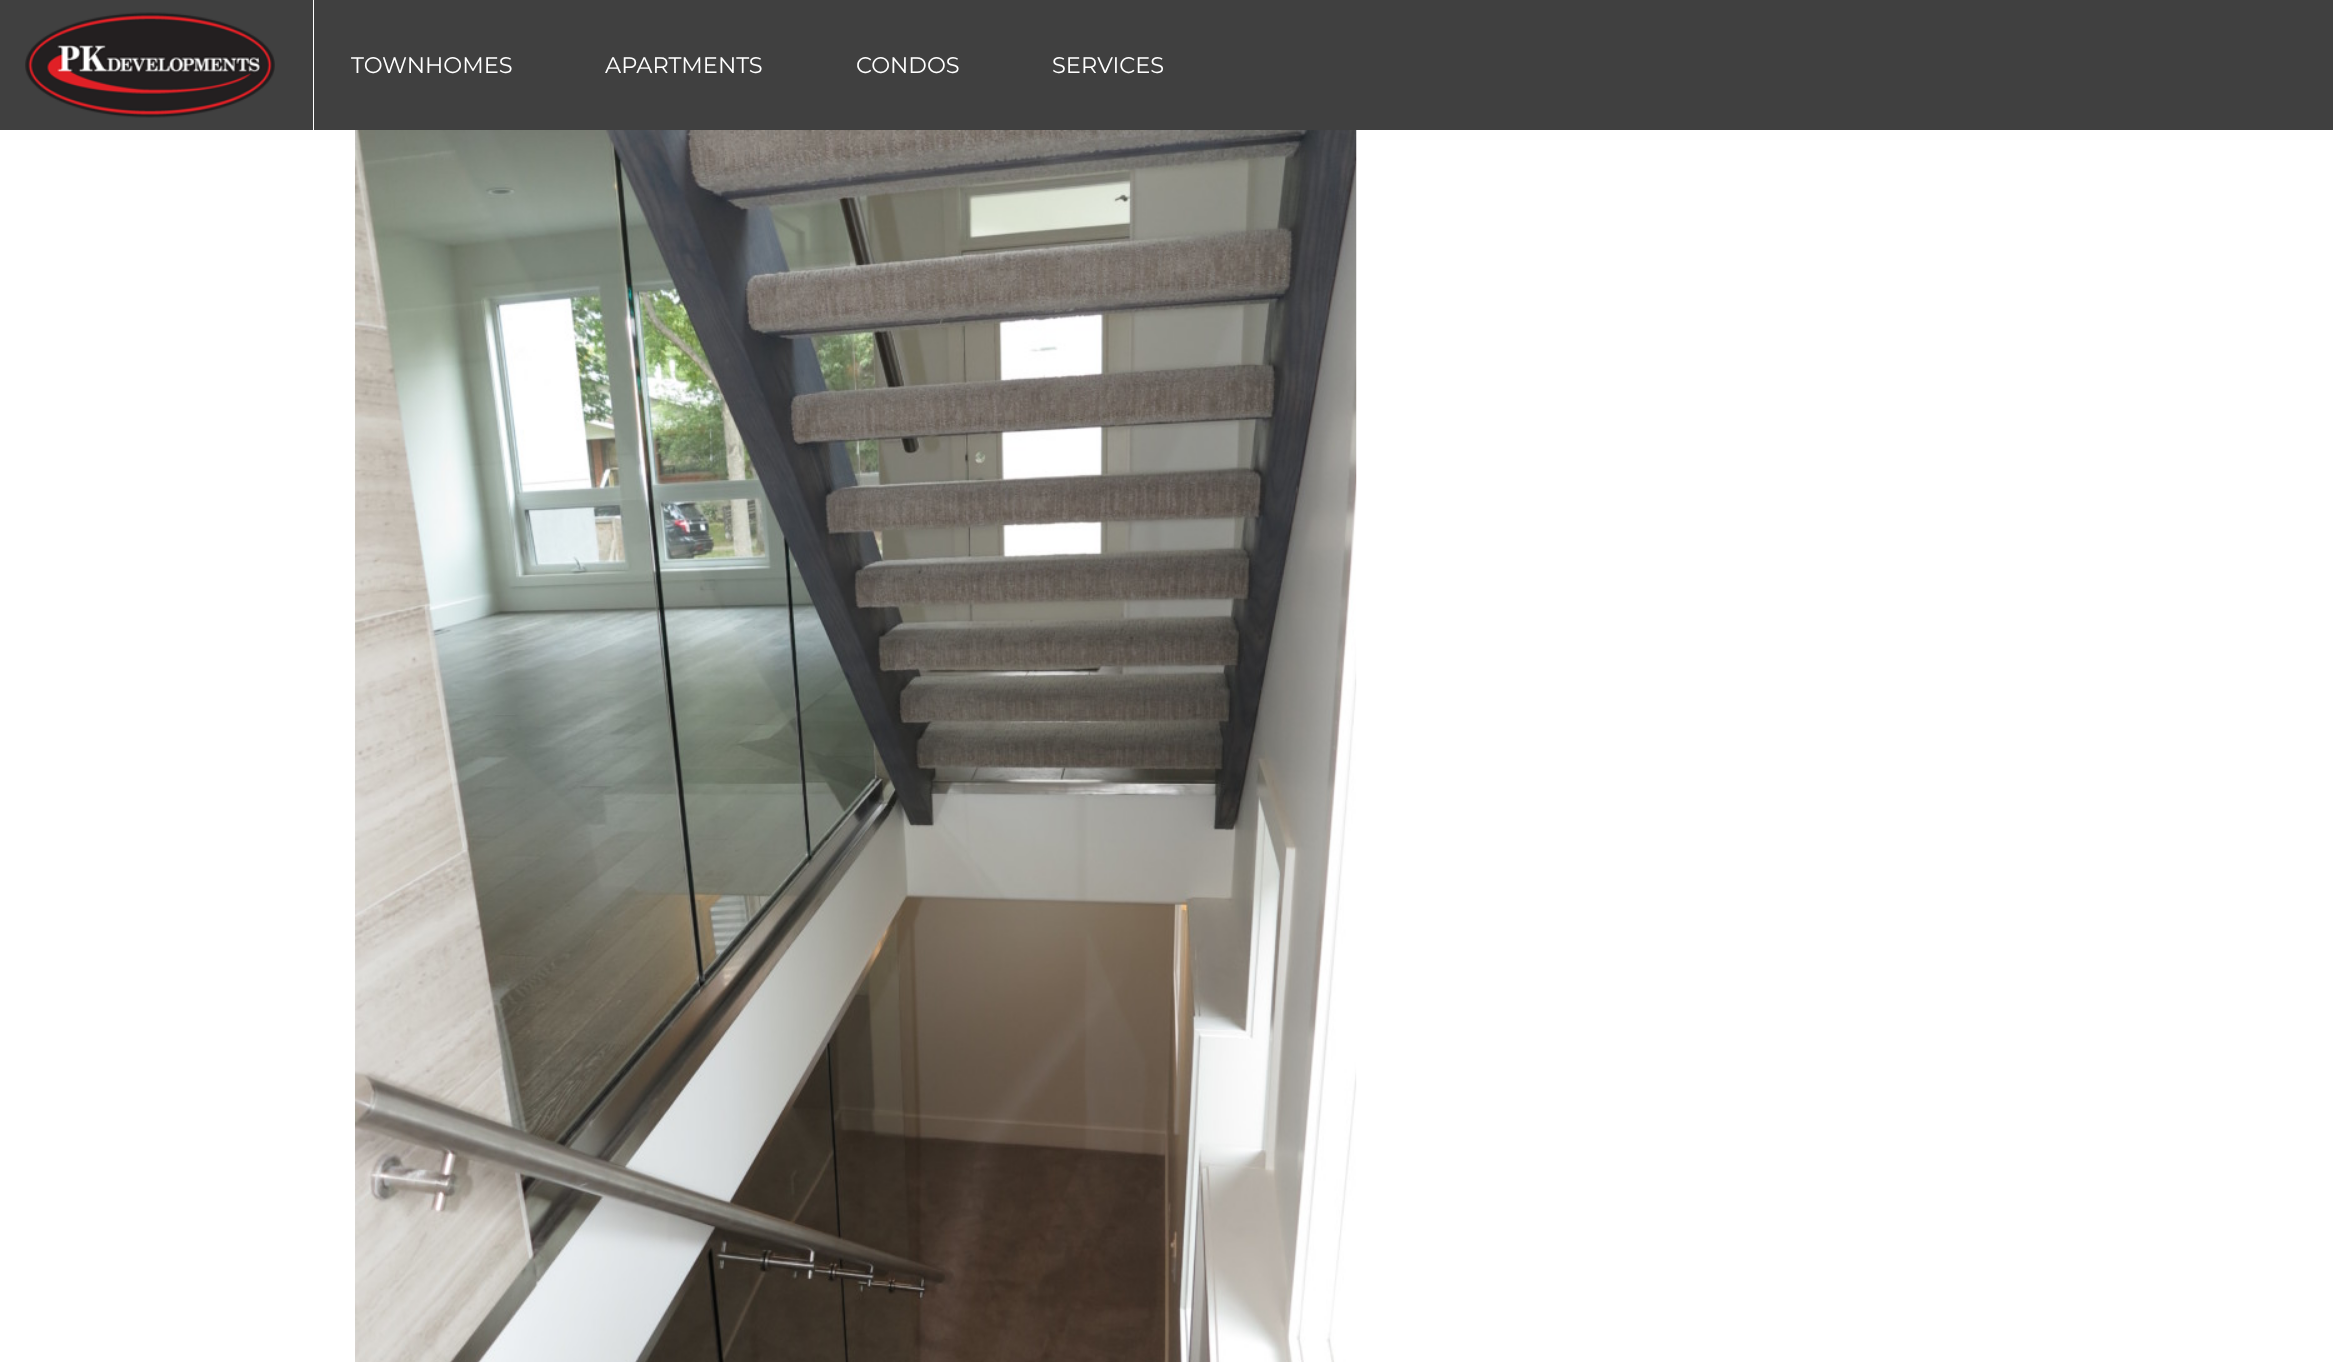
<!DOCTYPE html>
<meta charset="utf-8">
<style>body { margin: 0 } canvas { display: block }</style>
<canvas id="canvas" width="2333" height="1362"></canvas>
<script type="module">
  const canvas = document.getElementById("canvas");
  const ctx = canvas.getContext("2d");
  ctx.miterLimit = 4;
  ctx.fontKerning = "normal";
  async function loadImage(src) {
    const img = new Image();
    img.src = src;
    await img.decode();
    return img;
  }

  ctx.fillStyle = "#ffffff";
  ctx.fillRect(0, 0, 2333, 1362);
  ctx.fillStyle = "#404040";
  ctx.fillRect(0, 0, 2333, 130);
  ctx.fillStyle = "#ffffff";
  ctx.fillRect(313, 0, 1, 130);
  ctx.drawImage(await loadImage("img1.png"), 25, 12, 250, 106);
  ctx.font = "22.5px Montserrat";
  ctx.fillText("TOWNHOMES", 351, 73);
  ctx.fillText("APARTMENTS", 605, 73);
  ctx.fillText("CONDOS", 856, 73);
  ctx.fillText("SERVICES", 1052, 73);
  ctx.drawImage(await loadImage("img2.png"), 355, 130, 1002, 1232);
</script>
